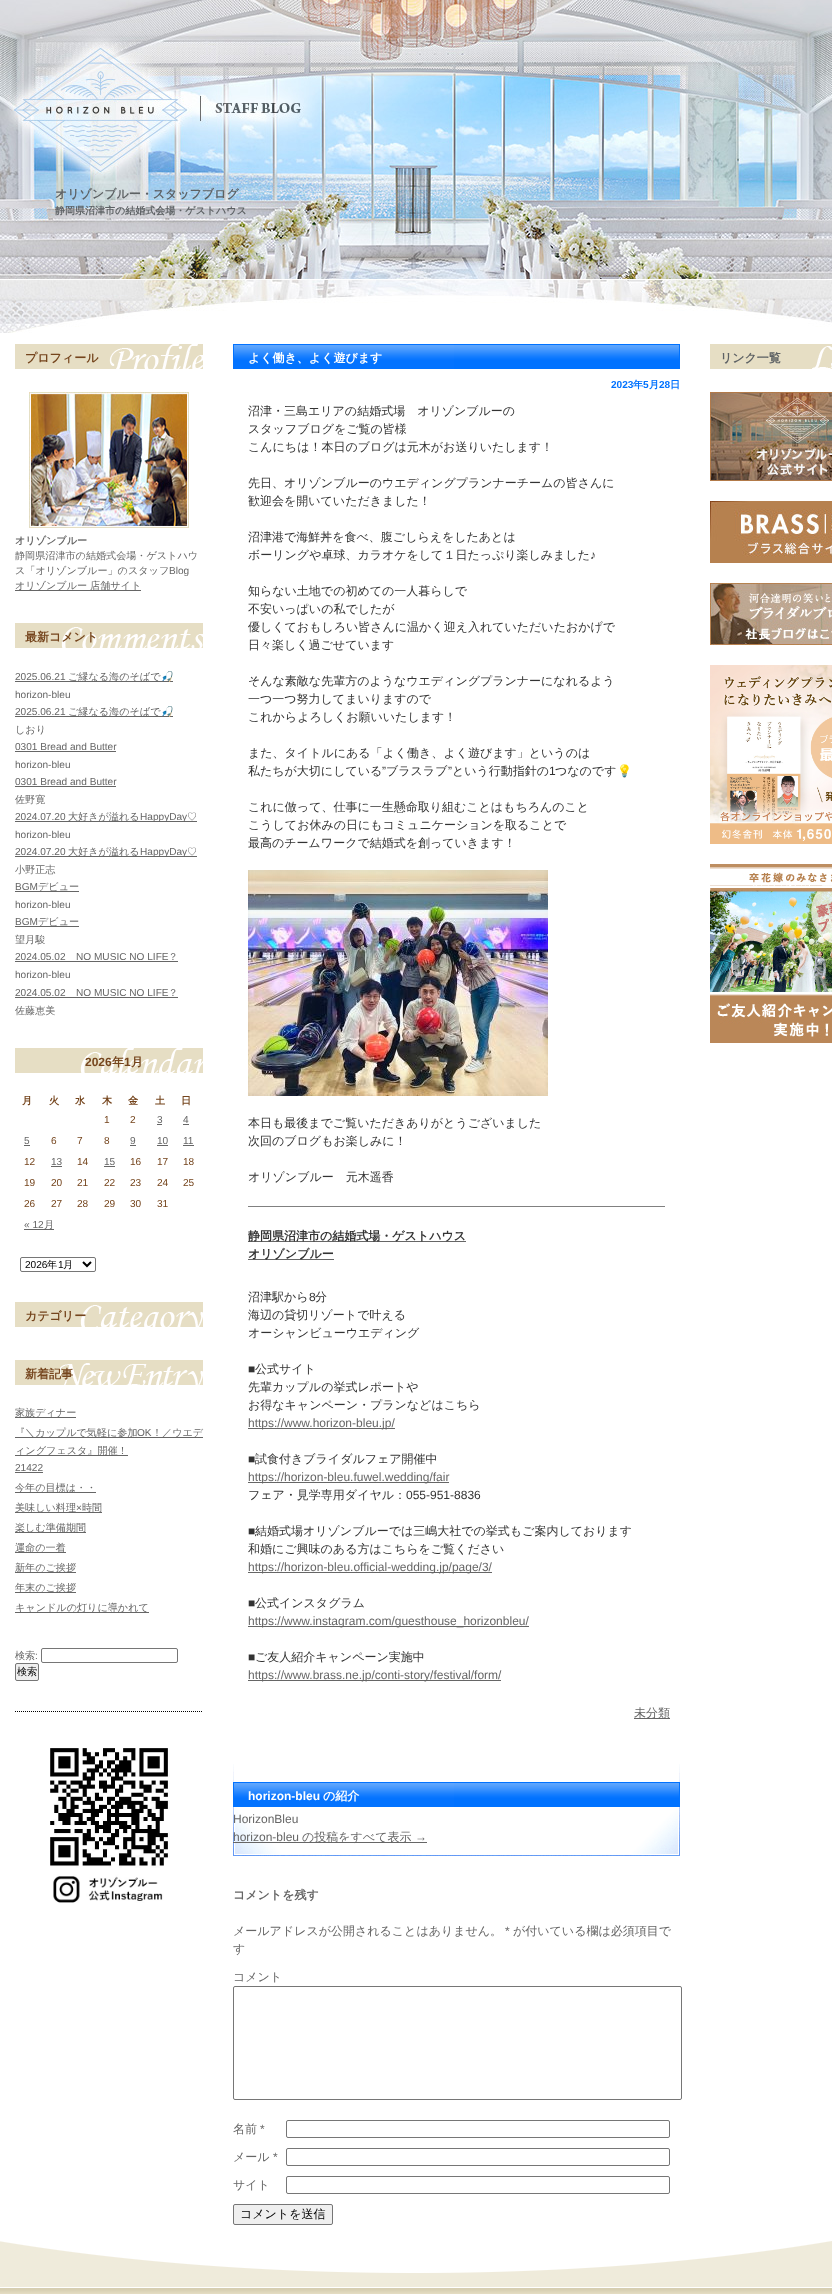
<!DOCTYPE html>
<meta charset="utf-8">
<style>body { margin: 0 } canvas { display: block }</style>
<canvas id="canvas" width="832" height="2294"></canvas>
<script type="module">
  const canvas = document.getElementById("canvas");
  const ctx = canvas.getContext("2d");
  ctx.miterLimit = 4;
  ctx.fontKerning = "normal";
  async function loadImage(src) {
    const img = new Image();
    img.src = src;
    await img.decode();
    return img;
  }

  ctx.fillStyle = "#ffffff";
  ctx.fillRect(0, 0, 832, 2294);
  ctx.drawImage(await loadImage("img1.png"), 0, 0, 832, 279);
  ctx.font = "bold 12px WenQuanYi Zen Hei";
  ctx.fillStyle = "#5d6164";
  ctx.fillText("オリゾンブルー・スタッフブログ", 55, 198);
  ctx.font = "bold 10px WenQuanYi Zen Hei";
  ctx.fillText("静岡県沼津市の結婚式会場・ゲストハウス", 55, 214);
  ctx.drawImage(await loadImage("img2.png"), 0, 279, 832, 54);
  ctx.drawImage(await loadImage("img3.png"), 15, 344, 188, 25);
  ctx.font = "bold 12px WenQuanYi Zen Hei";
  ctx.fillStyle = "#75451d";
  ctx.fillText("プロフィール", 25, 362);
  ctx.drawImage(await loadImage("img4.png"), 29, 392, 160, 136);
  ctx.font = "bold 10.1px WenQuanYi Zen Hei";
  ctx.fillStyle = "#666666";
  ctx.fillText("オリゾンブルー", 15, 544);
  ctx.font = "500 10.1px WenQuanYi Zen Hei";
  ctx.fillText("静岡県沼津市の結婚式会場・ゲストハウ", 15, 559);
  ctx.fillText("ス「オリゾンブルー」のスタッフ", 15, 574);
  ctx.font = "10.1px Liberation Sans";
  ctx.fillText("Blog", 169, 574);
  ctx.fillRect(15, 590, 126, 1);
  ctx.font = "500 10.1px WenQuanYi Zen Hei";
  ctx.fillText("オリゾンブルー 店舗サイト", 15, 589);
  ctx.drawImage(await loadImage("img5.png"), 15, 623, 188, 25);
  ctx.font = "bold 12px WenQuanYi Zen Hei";
  ctx.fillStyle = "#75451d";
  ctx.fillText("最新コメント", 25, 641);
  ctx.font = "10.1px Liberation Sans";
  ctx.fillStyle = "#666666";
  ctx.fillText("2025.06.21", 15, 680);
  ctx.fillRect(15, 681, 158, 1);
  ctx.font = "500 10.1px WenQuanYi Zen Hei";
  ctx.fillText("ご縁なる海のそばで", 68, 680);
  ctx.font = "10.1px Noto Color Emoji";
  ctx.fillText("🎣", 161, 680);
  ctx.font = "10.1px Liberation Sans";
  ctx.fillText("horizon-bleu", 15, 698);
  ctx.fillText("2025.06.21", 15, 715);
  ctx.fillRect(15, 716, 158, 1);
  ctx.font = "500 10.1px WenQuanYi Zen Hei";
  ctx.fillText("ご縁なる海のそばで", 68, 715);
  ctx.font = "10.1px Noto Color Emoji";
  ctx.fillText("🎣", 161, 715);
  ctx.font = "500 10.1px WenQuanYi Zen Hei";
  ctx.fillText("しおり", 15, 733);
  ctx.font = "10.1px Liberation Sans";
  ctx.fillText("0301 Bread and Butter", 15, 750);
  ctx.fillRect(15, 751, 101, 1);
  ctx.fillText("horizon-bleu", 15, 768);
  ctx.fillText("0301 Bread and Butter", 15, 785);
  ctx.fillRect(15, 786, 101, 1);
  ctx.font = "500 10.1px WenQuanYi Zen Hei";
  ctx.fillText("佐野寛", 15, 803);
  ctx.font = "10.1px Liberation Sans";
  ctx.fillText("2024.07.20", 15, 820);
  ctx.fillRect(15, 821, 182, 1);
  ctx.font = "500 10.1px WenQuanYi Zen Hei";
  ctx.fillText("大好きが溢れる", 68, 820);
  ctx.font = "10.1px Liberation Sans";
  ctx.fillText("HappyDay", 140, 820);
  ctx.font = "500 10.1px WenQuanYi Zen Hei";
  ctx.fillText("♡", 187, 820);
  ctx.font = "10.1px Liberation Sans";
  ctx.fillText("horizon-bleu", 15, 838);
  ctx.fillText("2024.07.20", 15, 855);
  ctx.fillRect(15, 856, 182, 1);
  ctx.font = "500 10.1px WenQuanYi Zen Hei";
  ctx.fillText("大好きが溢れる", 68, 855);
  ctx.font = "10.1px Liberation Sans";
  ctx.fillText("HappyDay", 140, 855);
  ctx.font = "500 10.1px WenQuanYi Zen Hei";
  ctx.fillText("♡", 187, 855);
  ctx.fillText("小野正志", 15, 873);
  ctx.font = "10.1px Liberation Sans";
  ctx.fillText("BGM", 15, 890);
  ctx.fillRect(15, 891, 64, 1);
  ctx.font = "500 10.1px WenQuanYi Zen Hei";
  ctx.fillText("デビュー", 38, 890);
  ctx.font = "10.1px Liberation Sans";
  ctx.fillText("horizon-bleu", 15, 908);
  ctx.fillText("BGM", 15, 925);
  ctx.fillRect(15, 926, 64, 1);
  ctx.font = "500 10.1px WenQuanYi Zen Hei";
  ctx.fillText("デビュー", 38, 925);
  ctx.fillText("望月駿", 15, 943);
  ctx.font = "10.1px Liberation Sans";
  ctx.fillText("2024.05.02", 15, 960);
  ctx.fillRect(15, 961, 163, 1);
  ctx.fillText("NO MUSIC NO LIFE", 76, 960);
  ctx.font = "500 10.1px WenQuanYi Zen Hei";
  ctx.fillText("？", 168, 960);
  ctx.font = "10.1px Liberation Sans";
  ctx.fillText("horizon-bleu", 15, 978);
  ctx.fillText("2024.05.02", 15, 996);
  ctx.fillRect(15, 997, 163, 1);
  ctx.fillText("NO MUSIC NO LIFE", 76, 996);
  ctx.font = "500 10.1px WenQuanYi Zen Hei";
  ctx.fillText("？", 168, 996);
  ctx.fillText("佐藤恵美", 15, 1014);
  ctx.drawImage(await loadImage("img6.png"), 15, 1048, 188, 25);
  ctx.font = "bold 12px Liberation Sans";
  ctx.fillStyle = "#75451d";
  ctx.fillText("2026", 85, 1066);
  ctx.font = "bold 12px WenQuanYi Zen Hei";
  ctx.fillText("年", 112, 1066);
  ctx.font = "bold 12px Liberation Sans";
  ctx.fillText("1", 124, 1066);
  ctx.font = "bold 12px WenQuanYi Zen Hei";
  ctx.fillText("月", 131, 1066);
  ctx.font = "bold 10.1px WenQuanYi Zen Hei";
  ctx.fillText("月", 22, 1104);
  ctx.fillText("火", 49, 1104);
  ctx.fillText("水", 75, 1104);
  ctx.fillText("木", 102, 1104);
  ctx.fillText("金", 128, 1104);
  ctx.fillText("土", 155, 1104);
  ctx.fillText("日", 181, 1104);
  ctx.font = "10.1px Liberation Sans";
  ctx.fillText("1", 104, 1123);
  ctx.fillText("2", 130, 1123);
  ctx.fillStyle = "#666666";
  ctx.fillText("3", 157, 1123);
  ctx.fillRect(157, 1124, 5, 1);
  ctx.fillText("4", 183, 1123);
  ctx.fillRect(183, 1124, 6, 1);
  ctx.fillText("5", 24, 1144);
  ctx.fillRect(24, 1145, 6, 1);
  ctx.fillStyle = "#75451d";
  ctx.fillText("6", 51, 1144);
  ctx.fillText("7", 77, 1144);
  ctx.fillText("8", 104, 1144);
  ctx.fillStyle = "#666666";
  ctx.fillText("9", 130, 1144);
  ctx.fillRect(130, 1145, 6, 1);
  ctx.fillText("10", 157, 1144);
  ctx.fillRect(157, 1145, 11, 1);
  ctx.fillText("11", 183, 1144);
  ctx.fillRect(183, 1145, 11, 1);
  ctx.fillStyle = "#75451d";
  ctx.fillText("12", 24, 1165);
  ctx.fillStyle = "#666666";
  ctx.fillText("13", 51, 1165);
  ctx.fillRect(51, 1166, 11, 1);
  ctx.fillStyle = "#75451d";
  ctx.fillText("14", 77, 1165);
  ctx.fillStyle = "#666666";
  ctx.fillText("15", 104, 1165);
  ctx.fillRect(104, 1166, 11, 1);
  ctx.fillStyle = "#75451d";
  ctx.fillText("16", 130, 1165);
  ctx.fillText("17", 157, 1165);
  ctx.fillText("18", 183, 1165);
  ctx.fillText("19", 24, 1186);
  ctx.fillText("20", 51, 1186);
  ctx.fillText("21", 77, 1186);
  ctx.fillText("22", 104, 1186);
  ctx.fillText("23", 130, 1186);
  ctx.fillText("24", 157, 1186);
  ctx.fillText("25", 183, 1186);
  ctx.fillText("26", 24, 1207);
  ctx.fillText("27", 51, 1207);
  ctx.fillText("28", 77, 1207);
  ctx.fillText("29", 104, 1207);
  ctx.fillText("30", 130, 1207);
  ctx.fillText("31", 157, 1207);
  ctx.fillStyle = "#666666";
  ctx.fillText("« 12", 24, 1228);
  ctx.fillRect(24, 1229, 30, 1);
  ctx.font = "500 10.1px WenQuanYi Zen Hei";
  ctx.fillText("月", 44, 1228);
  ctx.beginPath();
  ctx.roundRect(20.5, 1257.5, 75, 14, 1.5);
  ctx.strokeStyle = "#767676";
  ctx.stroke();
  ctx.beginPath();
  ctx.moveTo(83, 1262);
  ctx.lineTo(87, 1266);
  ctx.lineTo(91, 1262);
  ctx.strokeStyle = "#000000";
  ctx.lineWidth = 2;
  ctx.stroke();
  ctx.font = "10.1px Liberation Sans";
  ctx.fillStyle = "#000000";
  ctx.fillText("2026", 25, 1268);
  ctx.font = "500 10.1px WenQuanYi Zen Hei";
  ctx.fillText("年", 47, 1268);
  ctx.font = "10.1px Liberation Sans";
  ctx.fillText("1", 58, 1268);
  ctx.font = "500 10.1px WenQuanYi Zen Hei";
  ctx.fillText("月", 63, 1268);
  ctx.drawImage(await loadImage("img7.png"), 15, 1302, 188, 25);
  ctx.font = "bold 12px WenQuanYi Zen Hei";
  ctx.fillStyle = "#75451d";
  ctx.fillText("カテゴリー", 25, 1320);
  ctx.drawImage(await loadImage("img8.png"), 15, 1360, 188, 25);
  ctx.fillText("新着記事", 25, 1378);
  ctx.fillStyle = "#666666";
  ctx.fillRect(15, 1417, 61, 1);
  ctx.font = "500 10.1px WenQuanYi Zen Hei";
  ctx.fillText("家族ディナー", 15, 1416);
  ctx.fillRect(15, 1437, 188, 1);
  ctx.fillText("『＼カップルで気軽に参加", 15, 1436);
  ctx.font = "10.1px Liberation Sans";
  ctx.fillText("OK", 137, 1436);
  ctx.font = "500 10.1px WenQuanYi Zen Hei";
  ctx.fillText("！／ウエデ", 152, 1436);
  ctx.fillRect(15, 1455, 113, 1);
  ctx.fillText("ィングフェスタ』開催！", 15, 1454);
  ctx.font = "10.1px Liberation Sans";
  ctx.fillText("21422", 15, 1471);
  ctx.fillRect(15, 1472, 28, 1);
  ctx.fillRect(15, 1492, 81, 1);
  ctx.font = "500 10.1px WenQuanYi Zen Hei";
  ctx.fillText("今年の目標は・・", 15, 1491);
  ctx.fillRect(15, 1512, 87, 1);
  ctx.fillText("美味しい料理", 15, 1511);
  ctx.font = "10.1px Liberation Sans";
  ctx.fillText("×", 76, 1511);
  ctx.font = "500 10.1px WenQuanYi Zen Hei";
  ctx.fillText("時間", 82, 1511);
  ctx.fillRect(15, 1532, 71, 1);
  ctx.fillText("楽しむ準備期間", 15, 1531);
  ctx.fillRect(15, 1552, 51, 1);
  ctx.fillText("運命の一着", 15, 1551);
  ctx.fillRect(15, 1572, 61, 1);
  ctx.fillText("新年のご挨拶", 15, 1571);
  ctx.fillRect(15, 1592, 61, 1);
  ctx.fillText("年末のご挨拶", 15, 1591);
  ctx.fillRect(15, 1612, 134, 1);
  ctx.fillText("キャンドルの灯りに導かれて", 15, 1611);
  ctx.fillText("検索", 15, 1659);
  ctx.font = "10.1px Liberation Sans";
  ctx.fillText(":", 35, 1659);
  ctx.beginPath();
  ctx.roundRect(41.5, 1648.5, 136, 14, 1.5);
  ctx.strokeStyle = "#767676";
  ctx.lineWidth = 1;
  ctx.stroke();
  ctx.fillStyle = "#efefef";
  ctx.beginPath();
  ctx.roundRect(15.5, 1663.5, 23, 17, 1.5);
  ctx.fill();
  ctx.stroke();
  ctx.font = "500 10.1px WenQuanYi Zen Hei";
  ctx.fillStyle = "#000000";
  ctx.fillText("検索", 17, 1675);
  ctx.beginPath();
  ctx.moveTo(15, 1711.5);
  ctx.lineTo(203, 1711.5);
  ctx.strokeStyle = "#000000";
  ctx.setLineDash([1, 1]);
  ctx.stroke();
  ctx.drawImage(await loadImage("img9.png"), 50, 1748, 120, 155);
  ctx.drawImage(await loadImage("img10.png"), 233, 1764, 447, 92);
  ctx.drawImage(await loadImage("img11.png"), 233, 344, 447, 25);
  ctx.font = "bold 12px WenQuanYi Zen Hei";
  ctx.fillStyle = "#ffffff";
  ctx.fillText("よく働き、よく遊びます", 248, 362);
  ctx.font = "bold 10.1px Liberation Sans";
  ctx.fillStyle = "#0072ff";
  ctx.fillText("2023", 611, 388);
  ctx.font = "bold 10.1px WenQuanYi Zen Hei";
  ctx.fillText("年", 633, 388);
  ctx.font = "bold 10.1px Liberation Sans";
  ctx.fillText("5", 643, 388);
  ctx.font = "bold 10.1px WenQuanYi Zen Hei";
  ctx.fillText("月", 649, 388);
  ctx.font = "bold 10.1px Liberation Sans";
  ctx.fillText("28", 659, 388);
  ctx.font = "bold 10.1px WenQuanYi Zen Hei";
  ctx.fillText("日", 670, 388);
  ctx.font = "500 12px WenQuanYi Zen Hei";
  ctx.fillStyle = "#333333";
  ctx.fillText("沼津・三島エリアの結婚式場　オリゾンブルーの", 248, 415);
  ctx.fillText("スタッフブログをご覧の皆様", 248, 433);
  ctx.fillText("こんにちは！本日のブログは元木がお送りいたします！", 248, 451);
  ctx.fillText("先日、オリゾンブルーのウエディングプランナーチームの皆さんに", 248, 487);
  ctx.fillText("歓迎会を開いていただきました！", 248, 505);
  ctx.fillText("沼津港で海鮮丼を食べ、腹ごしらえをしたあとは", 248, 541);
  ctx.fillText("ボーリングや卓球、カラオケをして１日たっぷり楽しみました", 248, 559);
  ctx.font = "12px Liberation Sans";
  ctx.fillText("♪", 590, 559);
  ctx.font = "500 12px WenQuanYi Zen Hei";
  ctx.fillText("知らない土地での初めての一人暮らしで", 248, 595);
  ctx.fillText("不安いっぱいの私でしたが", 248, 613);
  ctx.fillText("優しくておもしろい皆さんに温かく迎え入れていただいたおかげで", 248, 631);
  ctx.fillText("日々楽しく過ごせています", 248, 649);
  ctx.fillText("そんな素敵な先輩方のようなウエディングプランナーになれるよう", 248, 685);
  ctx.fillText("一つ一つ努力してまいりますので", 248, 703);
  ctx.fillText("これからよろしくお願いいたします！", 248, 721);
  ctx.fillText("また、タイトルにある「よく働き、よく遊びます」というのは", 248, 757);
  ctx.fillText("私たちが大切にしている", 248, 775);
  ctx.font = "12px Liberation Sans";
  ctx.fillText("”", 382, 775);
  ctx.font = "500 12px WenQuanYi Zen Hei";
  ctx.fillText("ブラスラブ", 386, 775);
  ctx.font = "12px Liberation Sans";
  ctx.fillText("”", 448, 775);
  ctx.font = "500 12px WenQuanYi Zen Hei";
  ctx.fillText("という行動指針の", 452, 775);
  ctx.font = "12px Liberation Sans";
  ctx.fillText("1", 549, 775);
  ctx.font = "500 12px WenQuanYi Zen Hei";
  ctx.fillText("つなのです", 555, 775);
  ctx.font = "12px Noto Color Emoji";
  ctx.fillText("💡", 617, 775);
  ctx.font = "500 12px WenQuanYi Zen Hei";
  ctx.fillText("これに倣って、仕事に一生懸命取り組むことはもちろんのこと", 248, 811);
  ctx.fillText("こうしてお休みの日にもコミュニケーションを取ることで", 248, 829);
  ctx.fillText("最高のチームワークで結婚式を創っていきます！", 248, 847);
  ctx.drawImage(await loadImage("img12.png"), 248, 870, 300, 226);
  ctx.fillText("本日も最後までご覧いただきありがとうございました", 248, 1127);
  ctx.fillText("次回のブログもお楽しみに！", 248, 1145);
  ctx.fillText("オリゾンブルー　元木遥香", 248, 1181);
  ctx.fillStyle = "#808080";
  ctx.fillRect(248, 1206, 417, 1);
  ctx.fillStyle = "#666666";
  ctx.fillRect(248, 1241, 218, 1);
  ctx.font = "bold 12px WenQuanYi Zen Hei";
  ctx.fillStyle = "#333333";
  ctx.fillText("静岡県沼津市の結婚式場・ゲストハウス", 248, 1240);
  ctx.fillStyle = "#666666";
  ctx.fillRect(248, 1259, 86, 1);
  ctx.fillStyle = "#333333";
  ctx.fillText("オリゾンブルー", 248, 1258);
  ctx.font = "500 12px WenQuanYi Zen Hei";
  ctx.fillText("沼津駅から", 248, 1301);
  ctx.font = "12px Liberation Sans";
  ctx.fillText("8", 309, 1301);
  ctx.font = "500 12px WenQuanYi Zen Hei";
  ctx.fillText("分", 315, 1301);
  ctx.fillText("海辺の貸切リゾートで叶える", 248, 1319);
  ctx.fillText("オーシャンビューウエディング", 248, 1337);
  ctx.font = "12px Liberation Sans";
  ctx.fillText("■", 248, 1373);
  ctx.font = "500 12px WenQuanYi Zen Hei";
  ctx.fillText("公式サイト", 255, 1373);
  ctx.fillText("先輩カップルの挙式レポートや", 248, 1391);
  ctx.fillText("お得なキャンペーン・プランなどはこちら", 248, 1409);
  ctx.fillStyle = "#666666";
  ctx.fillRect(248, 1428, 147, 1);
  ctx.font = "12px Liberation Sans";
  ctx.fillText("https://www.horizon-bleu.jp/", 248, 1427);
  ctx.fillStyle = "#333333";
  ctx.fillText("■", 248, 1463);
  ctx.font = "500 12px WenQuanYi Zen Hei";
  ctx.fillText("試食付きブライダルフェア開催中", 255, 1463);
  ctx.fillStyle = "#666666";
  ctx.fillRect(248, 1482, 201, 1);
  ctx.font = "12px Liberation Sans";
  ctx.fillText("https://horizon-bleu.fuwel.wedding/fair", 248, 1481);
  ctx.font = "500 12px WenQuanYi Zen Hei";
  ctx.fillStyle = "#333333";
  ctx.fillText("フェア・見学専用ダイヤル：", 248, 1499);
  ctx.font = "12px Liberation Sans";
  ctx.fillText("055-951-8836", 406, 1499);
  ctx.fillText("■", 248, 1535);
  ctx.font = "500 12px WenQuanYi Zen Hei";
  ctx.fillText("結婚式場オリゾンブルーでは三嶋大社での挙式もご案内しております", 255, 1535);
  ctx.fillText("和婚にご興味のある方はこちらをご覧ください", 248, 1553);
  ctx.fillStyle = "#666666";
  ctx.fillRect(248, 1572, 244, 1);
  ctx.font = "12px Liberation Sans";
  ctx.fillText("https://horizon-bleu.official-wedding.jp/page/3/", 248, 1571);
  ctx.fillStyle = "#333333";
  ctx.fillText("■", 248, 1607);
  ctx.font = "500 12px WenQuanYi Zen Hei";
  ctx.fillText("公式インスタグラム", 255, 1607);
  ctx.fillStyle = "#666666";
  ctx.fillRect(248, 1626, 281, 1);
  ctx.font = "12px Liberation Sans";
  ctx.fillText("https://www.instagram.com/guesthouse_horizonbleu/", 248, 1625);
  ctx.fillStyle = "#333333";
  ctx.fillText("■", 248, 1661);
  ctx.font = "500 12px WenQuanYi Zen Hei";
  ctx.fillText("ご友人紹介キャンペーン実施中", 255, 1661);
  ctx.fillStyle = "#666666";
  ctx.fillRect(248, 1680, 253, 1);
  ctx.font = "12px Liberation Sans";
  ctx.fillText("https://www.brass.ne.jp/conti-story/festival/form/", 248, 1679);
  ctx.fillRect(634, 1718, 36, 1);
  ctx.font = "500 12px WenQuanYi Zen Hei";
  ctx.fillText("未分類", 634, 1717);
  ctx.drawImage(await loadImage("img11.png"), 233, 1782, 447, 25);
  ctx.font = "bold 12px Liberation Sans";
  ctx.fillStyle = "#ffffff";
  ctx.fillText("horizon-bleu", 248, 1800);
  ctx.font = "bold 12px WenQuanYi Zen Hei";
  ctx.fillText("の紹介", 323, 1800);
  ctx.font = "12px Liberation Sans";
  ctx.fillStyle = "#666666";
  ctx.fillText("HorizonBleu", 233, 1823);
  ctx.fillText("horizon-bleu", 233, 1841);
  ctx.fillRect(233, 1842, 194, 1);
  ctx.font = "500 12px WenQuanYi Zen Hei";
  ctx.fillText("の投稿をすべて表示", 302, 1841);
  ctx.font = "12px Liberation Sans";
  ctx.fillText("→", 415, 1841);
  ctx.font = "bold 12px WenQuanYi Zen Hei";
  ctx.fillText("コメントを残す", 233, 1899);
  ctx.font = "500 12px WenQuanYi Zen Hei";
  ctx.fillText("メールアドレスが公開されることはありません。", 233, 1935);
  ctx.font = "12px Liberation Sans";
  ctx.fillText("*", 505, 1935);
  ctx.font = "500 12px WenQuanYi Zen Hei";
  ctx.fillText("が付いている欄は必須項目で", 513, 1935);
  ctx.fillText("す", 233, 1953);
  ctx.fillText("コメント", 233, 1981);
  ctx.beginPath();
  ctx.roundRect(233.5, 1986.5, 448, 113, 1.5);
  ctx.strokeStyle = "#767676";
  ctx.setLineDash([]);
  ctx.stroke();
  ctx.fillText("名前", 233, 2133);
  ctx.font = "12px Liberation Sans";
  ctx.fillText("*", 260, 2133);
  ctx.beginPath();
  ctx.roundRect(286.5, 2120.5, 383, 17, 1.5);
  ctx.stroke();
  ctx.font = "500 12px WenQuanYi Zen Hei";
  ctx.fillText("メール", 233, 2161);
  ctx.font = "12px Liberation Sans";
  ctx.fillText("*", 273, 2161);
  ctx.beginPath();
  ctx.roundRect(286.5, 2148.5, 383, 17, 1.5);
  ctx.stroke();
  ctx.font = "500 12px WenQuanYi Zen Hei";
  ctx.fillText("サイト", 233, 2189);
  ctx.beginPath();
  ctx.roundRect(286.5, 2176.5, 383, 17, 1.5);
  ctx.stroke();
  ctx.fillStyle = "#efefef";
  ctx.beginPath();
  ctx.roundRect(233.5, 2204.5, 99, 20, 1.5);
  ctx.fill();
  ctx.stroke();
  ctx.fillStyle = "#000000";
  ctx.fillText("コメントを送信", 240, 2218);
  ctx.drawImage(await loadImage("img13.png"), 710, 344, 122, 25);
  ctx.font = "bold 12px WenQuanYi Zen Hei";
  ctx.fillStyle = "#5d6164";
  ctx.fillText("リンク一覧", 720, 362);
  ctx.drawImage(await loadImage("img14.png"), 710, 392, 122, 89);
  ctx.drawImage(await loadImage("img15.png"), 710, 501, 122, 62);
  ctx.drawImage(await loadImage("img16.png"), 710, 583, 122, 62);
  ctx.drawImage(await loadImage("img17.png"), 710, 665, 122, 179);
  ctx.drawImage(await loadImage("img18.png"), 710, 864, 122, 179);
  ctx.drawImage(await loadImage("img19.png"), 0, 2235, 832, 59);
</script>
